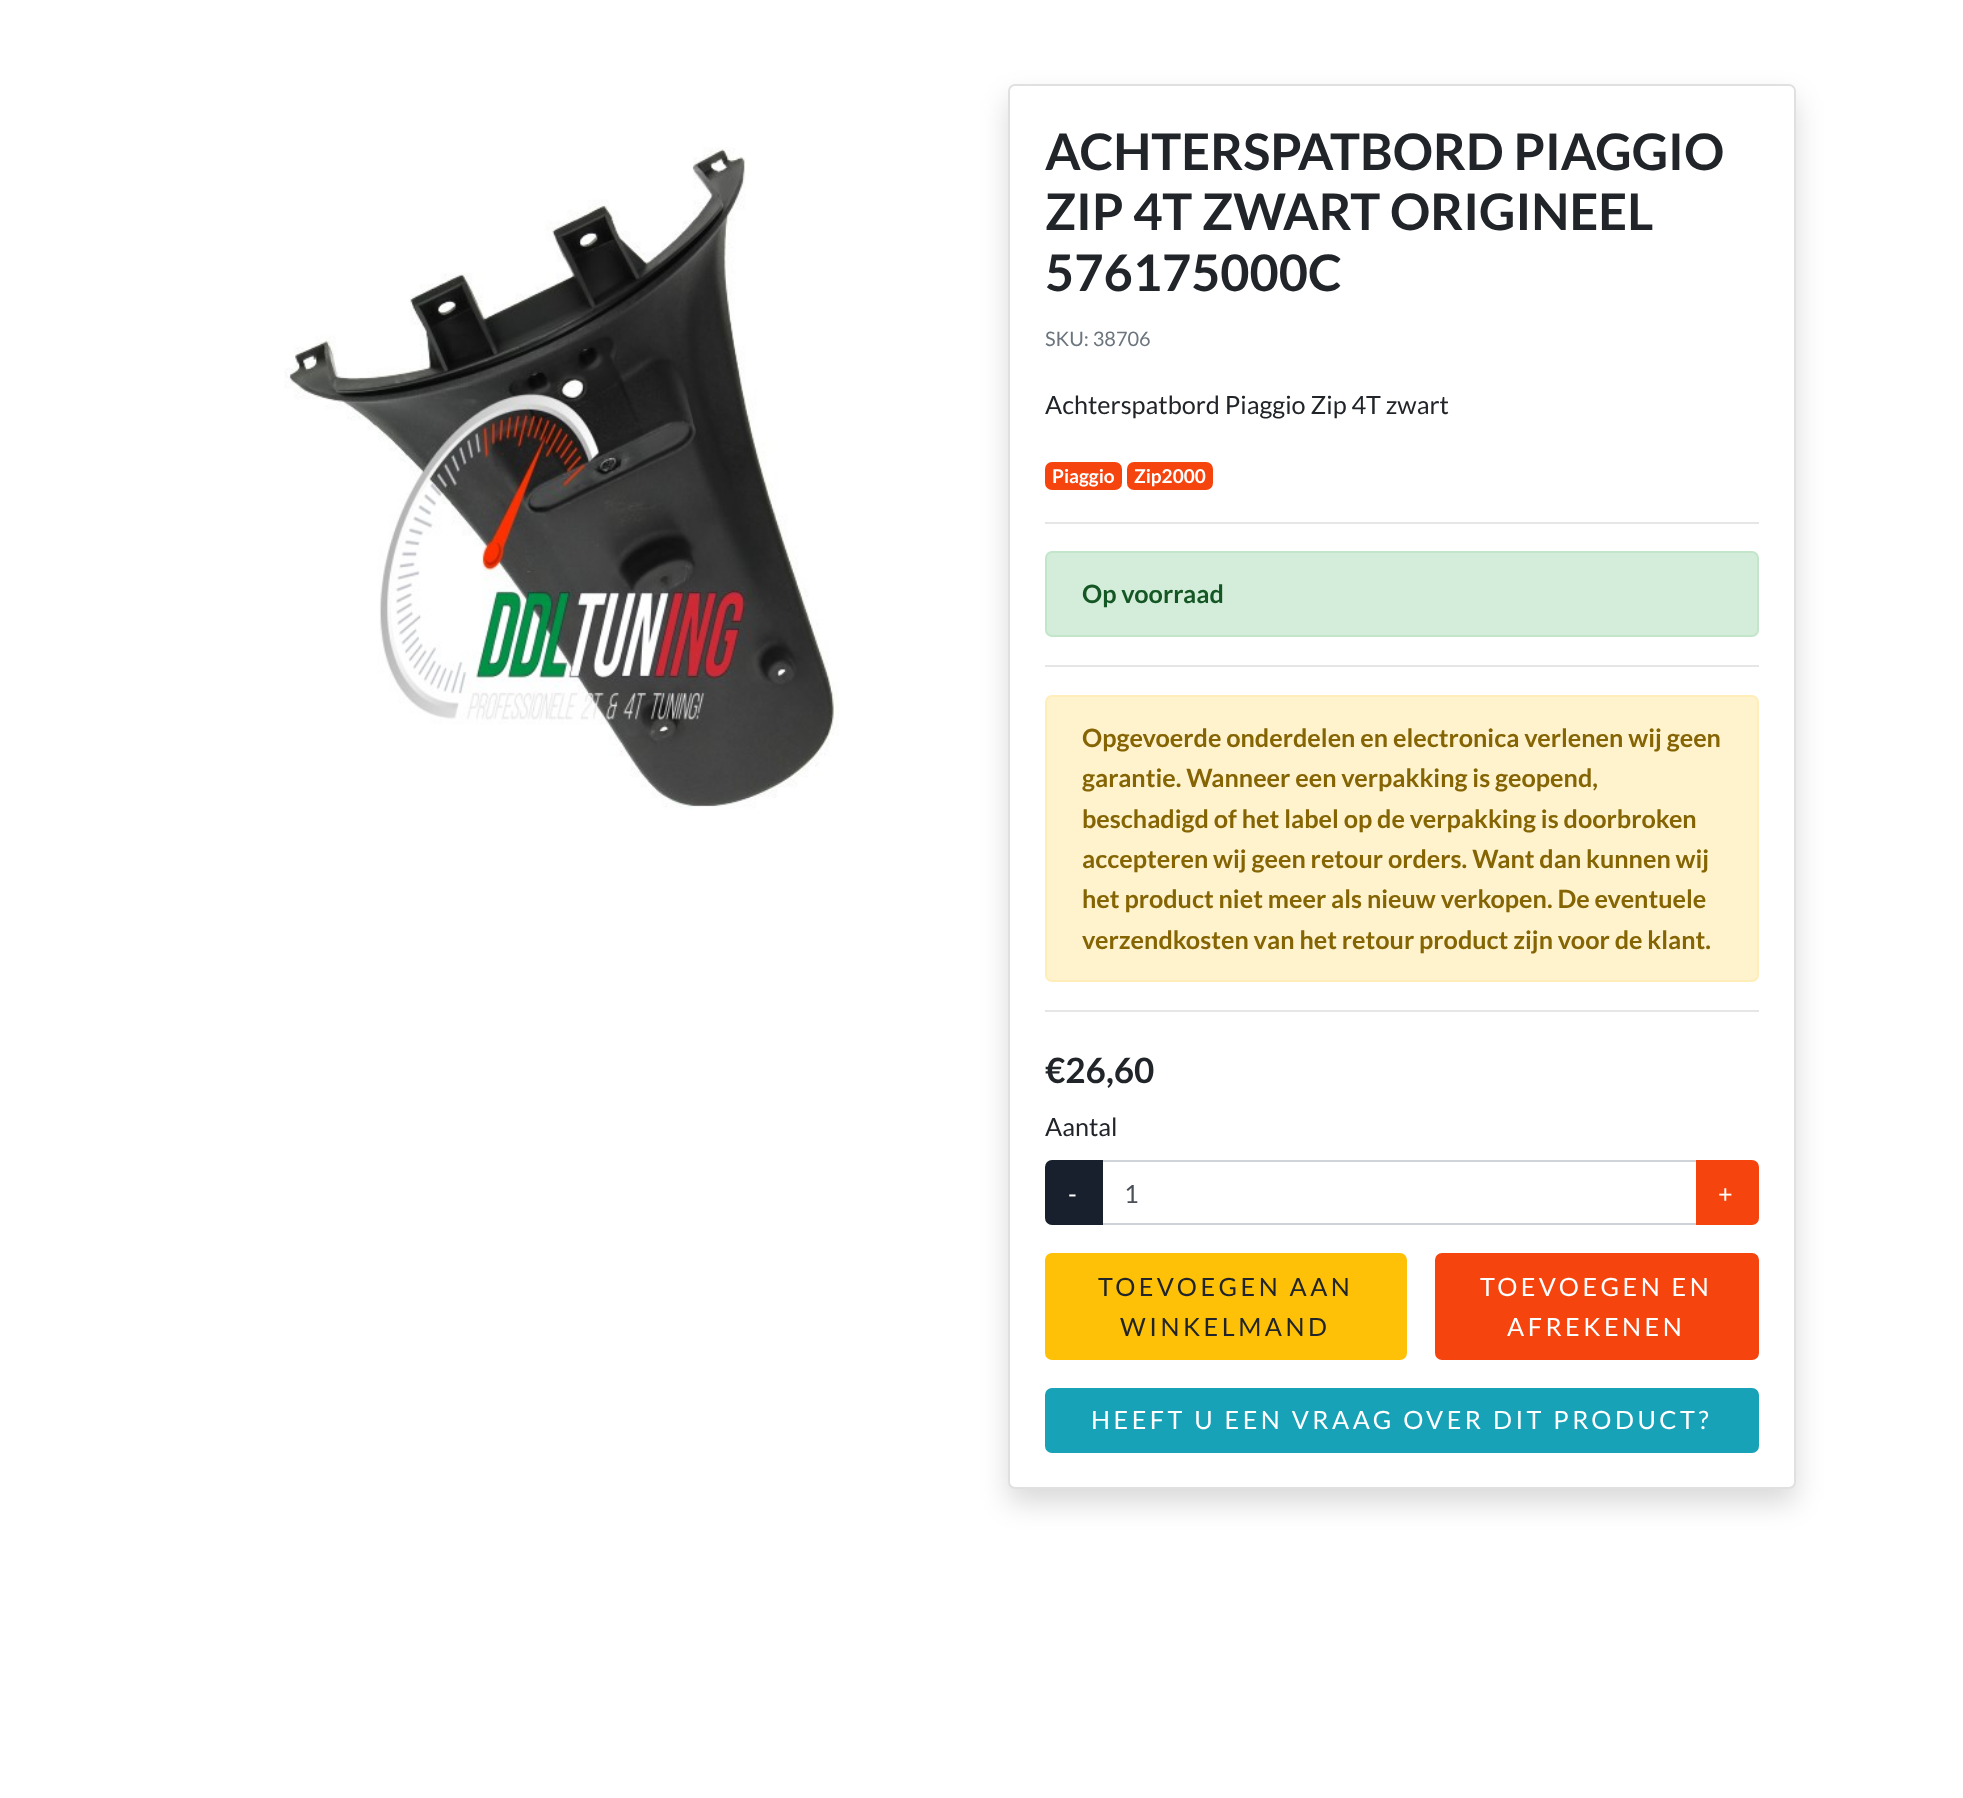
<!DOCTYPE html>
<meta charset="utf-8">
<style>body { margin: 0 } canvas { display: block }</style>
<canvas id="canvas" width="1963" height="1798"></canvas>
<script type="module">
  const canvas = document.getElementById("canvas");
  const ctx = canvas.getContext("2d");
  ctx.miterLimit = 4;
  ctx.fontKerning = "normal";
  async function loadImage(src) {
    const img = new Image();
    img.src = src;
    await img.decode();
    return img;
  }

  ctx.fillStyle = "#ffffff";
  ctx.fillRect(0, 0, 1963, 1798);
  ctx.drawImage(await loadImage("img1.png"), 284, 147, 555, 663);
  ctx.fillStyle = "rgba(0, 0, 0, 0.15)";
  ctx.filter = "blur(14px)";
  ctx.beginPath();
  ctx.roundRect(1008, 98, 788, 1405, 7);
  ctx.fill();
  ctx.filter = "none";
  ctx.fillStyle = "#ffffff";
  ctx.beginPath();
  ctx.roundRect(1008, 84, 788, 1405, 7);
  ctx.fill();
  ctx.beginPath();
  ctx.roundRect(1009, 85, 786, 1403, 6);
  ctx.strokeStyle = "rgba(0, 0, 0, 0.12)";
  ctx.lineWidth = 2;
  ctx.stroke();
  ctx.font = "bold 50.4px Lato";
  ctx.fillStyle = "#212529";
  ctx.fillText("ACHTERSPATBORD PIAGGIO", 1045, 170);
  ctx.fillText("ZIP 4T ZWART ORIGINEEL", 1045, 230);
  ctx.fillText("576175000C", 1045, 291);
  ctx.font = "20px Lato";
  ctx.fillStyle = "#6c757d";
  ctx.fillText("SKU: 38706", 1045, 346);
  ctx.font = "25.2px Lato";
  ctx.fillStyle = "#212529";
  ctx.fillText("Achterspatbord Piaggio Zip 4T zwart", 1045, 414);
  ctx.fillStyle = "#f5440e";
  ctx.beginPath();
  ctx.roundRect(1045, 462, 77, 28, 7);
  ctx.fill();
  ctx.font = "bold 19px Lato";
  ctx.fillStyle = "#ffffff";
  ctx.fillText("Piaggio", 1052, 483);
  ctx.fillStyle = "#f5440e";
  ctx.beginPath();
  ctx.roundRect(1127, 462, 86, 28, 7);
  ctx.fill();
  ctx.fillStyle = "#ffffff";
  ctx.fillText("Zip2000", 1134, 483);
  ctx.fillStyle = "#e6e6e6";
  ctx.fillRect(1045, 522, 714, 2);
  ctx.fillStyle = "#d4edda";
  ctx.beginPath();
  ctx.roundRect(1046, 552, 712, 84, 6);
  ctx.fill();
  ctx.strokeStyle = "#c3e6cb";
  ctx.stroke();
  ctx.font = "bold 25.2px Lato";
  ctx.fillStyle = "#155724";
  ctx.fillText("Op voorraad", 1082, 603);
  ctx.fillStyle = "#e6e6e6";
  ctx.fillRect(1045, 665, 714, 2);
  ctx.fillStyle = "#fff3cd";
  ctx.beginPath();
  ctx.roundRect(1046, 696, 712, 285, 6);
  ctx.fill();
  ctx.strokeStyle = "#ffeeba";
  ctx.stroke();
  ctx.fillStyle = "#856404";
  ctx.fillText("Opgevoerde onderdelen en electronica verlenen wij geen", 1082, 747);
  ctx.fillText("garantie. Wanneer een verpakking is geopend,", 1082, 787);
  ctx.fillText("beschadigd of het label op de verpakking is doorbroken", 1082, 828);
  ctx.fillText("accepteren wij geen retour orders. Want dan kunnen wij", 1082, 868);
  ctx.fillText("het product niet meer als nieuw verkopen. De eventuele", 1082, 908);
  ctx.fillText("verzendkosten van het retour product zijn voor de klant.", 1082, 949);
  ctx.fillStyle = "#e6e6e6";
  ctx.fillRect(1045, 1010, 714, 2);
  ctx.font = "bold 35px Lato";
  ctx.fillStyle = "#212529";
  ctx.fillText("€26,60", 1045, 1083);
  ctx.font = "25.2px Lato";
  ctx.fillText("Aantal", 1045, 1136);
  ctx.strokeStyle = "#ced4da";
  ctx.strokeRect(1102, 1161, 595, 63);
  ctx.fillStyle = "#18202d";
  ctx.beginPath();
  ctx.roundRect(1046, 1161, 56, 63, [6, 0, 0, 6]);
  ctx.fill();
  ctx.strokeStyle = "#18202d";
  ctx.stroke();
  ctx.letterSpacing = "3.5px";
  ctx.fillStyle = "#ffffff";
  ctx.fillText("-", 1068, 1203);
  ctx.letterSpacing = "0px";
  ctx.fillStyle = "#495057";
  ctx.fillText("1", 1124, 1203);
  ctx.fillStyle = "#f5440e";
  ctx.beginPath();
  ctx.roundRect(1697, 1161, 61, 63, [0, 6, 6, 0]);
  ctx.fill();
  ctx.strokeStyle = "#f5440e";
  ctx.stroke();
  ctx.letterSpacing = "3.5px";
  ctx.fillStyle = "#ffffff";
  ctx.fillText("+", 1718, 1203);
  ctx.fillStyle = "#ffc107";
  ctx.beginPath();
  ctx.roundRect(1046, 1254, 360, 105, 6);
  ctx.fill();
  ctx.strokeStyle = "#ffc107";
  ctx.stroke();
  ctx.fillStyle = "#212529";
  ctx.fillText("TOEVOEGEN AAN", 1098, 1296);
  ctx.fillText("WINKELMAND", 1120, 1336);
  ctx.fillStyle = "#f5440e";
  ctx.beginPath();
  ctx.roundRect(1436, 1254, 322, 105, 6);
  ctx.fill();
  ctx.strokeStyle = "#f5440e";
  ctx.stroke();
  ctx.fillStyle = "#ffffff";
  ctx.fillText("TOEVOEGEN EN", 1480, 1296);
  ctx.fillText("AFREKENEN", 1507, 1336);
  ctx.fillStyle = "#17a2b8";
  ctx.beginPath();
  ctx.roundRect(1046, 1389, 712, 63, 6);
  ctx.fill();
  ctx.strokeStyle = "#17a2b8";
  ctx.stroke();
  ctx.fillStyle = "#ffffff";
  ctx.fillText("HEEFT U EEN VRAAG OVER DIT PRODUCT?", 1091, 1429);
</script>
